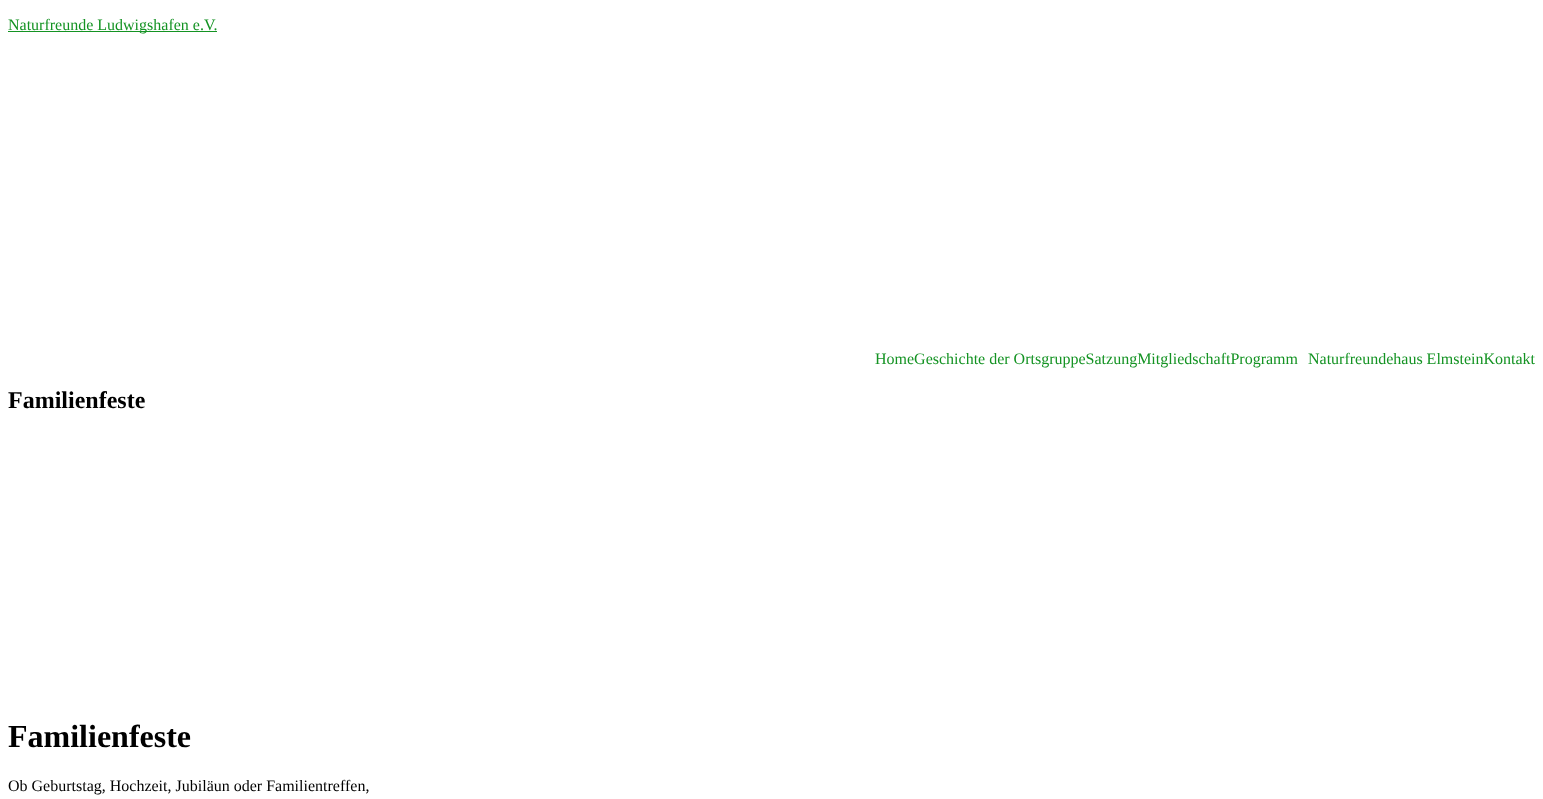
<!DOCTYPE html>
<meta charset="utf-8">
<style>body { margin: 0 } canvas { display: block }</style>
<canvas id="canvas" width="1543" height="799"></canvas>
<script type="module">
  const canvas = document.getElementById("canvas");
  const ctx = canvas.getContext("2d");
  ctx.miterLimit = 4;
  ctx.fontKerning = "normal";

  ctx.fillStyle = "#ffffff";
  ctx.fillRect(0, 0, 1543, 799);
  ctx.fillStyle = "#149323";
  ctx.fillRect(8, 31, 209, 1);
  ctx.font = "16px Liberation Serif";
  ctx.fillText("Naturfreunde Ludwigshafen e.V.", 8, 30);
  ctx.fillText("HomeGeschichte der OrtsgruppeSatzungMitgliedschaftProgramm", 875, 364);
  ctx.fillText("Naturfreundehaus ElmsteinKontakt", 1308, 364);
  ctx.font = "bold 24px Liberation Serif";
  ctx.fillStyle = "#000000";
  ctx.fillText("Familienfeste", 8, 408);
  ctx.font = "bold 32px Liberation Serif";
  ctx.fillText("Familienfeste", 8, 747);
  ctx.font = "16px Liberation Serif";
  ctx.fillText("Ob Geburtstag, Hochzeit, Jubiläun oder Familientreffen,", 8, 791);
</script>
